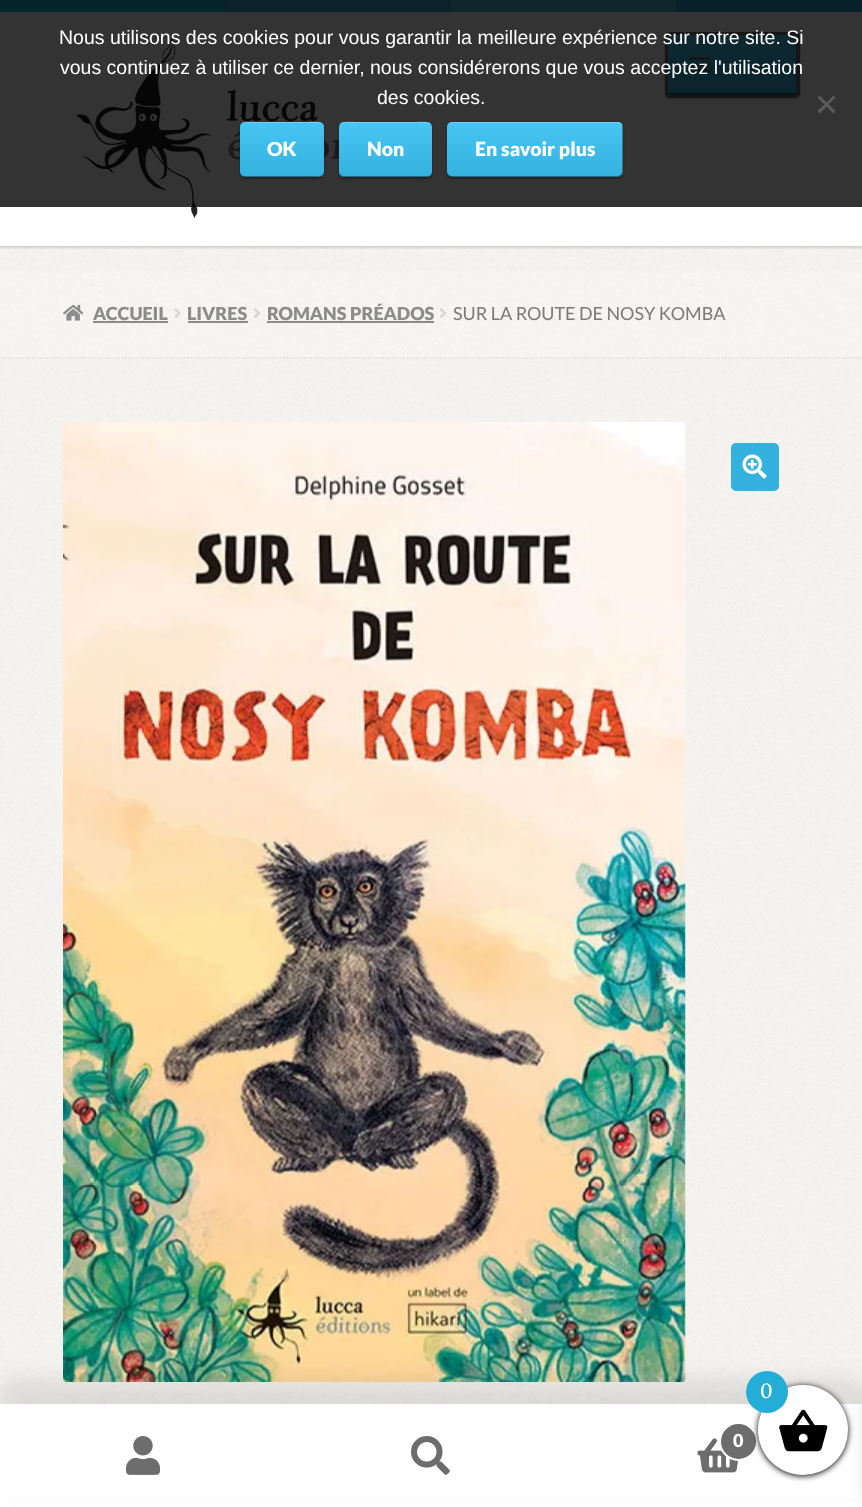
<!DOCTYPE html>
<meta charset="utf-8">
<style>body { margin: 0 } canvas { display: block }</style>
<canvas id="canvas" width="862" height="1507"></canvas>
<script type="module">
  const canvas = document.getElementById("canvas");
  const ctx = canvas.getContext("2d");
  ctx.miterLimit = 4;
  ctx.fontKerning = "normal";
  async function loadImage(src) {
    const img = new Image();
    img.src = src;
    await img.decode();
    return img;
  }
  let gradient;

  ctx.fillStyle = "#ffffff";
  ctx.fillRect(0, 0, 862, 1507);
  ctx.drawImage(await loadImage("img1.png"), 0, 246, 862, 1158);
  ctx.fillStyle = "rgba(0, 0, 0, 0.15)";
  ctx.filter = "blur(1px)";
  ctx.beginPath();
  ctx.rect(0, 2, 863, 246);
  ctx.fill();
  ctx.filter = "none";
  ctx.fillStyle = "#ffffff";
  ctx.fillRect(0, 12, 862, 234);
  ctx.fillStyle = "#24aed7";
  ctx.fillRect(0, 0, 862, 12);
  ctx.drawImage(await loadImage("img2.png"), 226, 0, 636, 12);
  ctx.drawImage(await loadImage("img3.png"), 75, 38, 294, 181);
  ctx.fillStyle = "rgba(0, 0, 0, 0.3)";
  ctx.filter = "blur(1px)";
  ctx.beginPath();
  ctx.roundRect(665, 33, 135, 66, 5);
  ctx.fill();
  ctx.filter = "none";
  ctx.save();
  ctx.beginPath();
  ctx.roundRect(665, 32, 135, 66, 5);
  ctx.clip();
  gradient = ctx.createLinearGradient(732, 34, 732, 95);
  gradient.addColorStop(0, "#47c6f4");
  gradient.addColorStop(1, "#33b2e0");
  ctx.fillStyle = gradient;
  ctx.fillRect(665, 35, 135, 60);
  ctx.restore();
  ctx.fillStyle = "rgba(255, 255, 255, 0.2)";
  ctx.beginPath();
  ctx.moveTo(669, 36);
  ctx.lineTo(795, 36);
  ctx.bezierCurveTo(797, 36, 796, 41, 796, 47);
  ctx.lineTo(796, 95);
  ctx.bezierCurveTo(797, 95, 797, 94, 797, 94);
  ctx.lineTo(797, 36);
  ctx.bezierCurveTo(797, 36, 796, 35, 796, 35);
  ctx.lineTo(670, 35);
  ctx.bezierCurveTo(669, 35, 668, 36, 668, 36);
  ctx.lineTo(668, 38);
  ctx.bezierCurveTo(668, 37, 668, 36, 669, 36);
  ctx.closePath();
  ctx.fill();
  ctx.fillStyle = "rgba(0, 0, 0, 0.4)";
  ctx.beginPath();
  ctx.moveTo(668, 92);
  ctx.lineTo(668, 94);
  ctx.bezierCurveTo(668, 94, 669, 95, 670, 95);
  ctx.lineTo(796, 95);
  ctx.bezierCurveTo(796, 95, 797, 94, 797, 94);
  ctx.lineTo(797, 36);
  ctx.bezierCurveTo(797, 36, 797, 35, 796, 35);
  ctx.lineTo(796, 92);
  ctx.bezierCurveTo(796, 92, 796, 93, 795, 93);
  ctx.lineTo(669, 93);
  ctx.bezierCurveTo(668, 93, 668, 92, 668, 92);
  ctx.closePath();
  ctx.fill();
  ctx.beginPath();
  ctx.roundRect(666.5, 33.5, 132, 63, 3.5);
  ctx.strokeStyle = "#6d6d6d";
  ctx.lineWidth = 3;
  ctx.stroke();
  ctx.fillStyle = "#6d6d6d";
  ctx.beginPath();
  ctx.roundRect(689, 57, 21, 3, 1.5);
  ctx.fill();
  ctx.beginPath();
  ctx.roundRect(689, 63, 21, 3, 1.5);
  ctx.fill();
  ctx.beginPath();
  ctx.roundRect(689, 69, 21, 3, 1.5);
  ctx.fill();
  ctx.fillStyle = "rgba(0, 0, 0, 0.8)";
  ctx.fillRect(0, 0, 862, 207);
  ctx.font = "19.5px Liberation Sans";
  ctx.fillStyle = "#ffffff";
  ctx.fillText("Nous utilisons des cookies pour vous garantir la meilleure expérience sur notre site. Si", 59, 44);
  ctx.fillText("vous continuez à utiliser ce dernier, nous considérerons que vous acceptez l'utilisation", 60, 74);
  ctx.fillText("des cookies.", 377, 104);
  ctx.fillStyle = "#5a5a5a";
  ctx.beginPath();
  ctx.moveTo(833.5, 95.5);
  ctx.lineTo(835.5, 97.5);
  ctx.lineTo(819.5, 113.5);
  ctx.lineTo(817.5, 111);
  ctx.closePath();
  ctx.fill();
  ctx.beginPath();
  ctx.moveTo(817.5, 97.5);
  ctx.lineTo(819.5, 95.5);
  ctx.lineTo(835.5, 111);
  ctx.lineTo(833.5, 113.5);
  ctx.closePath();
  ctx.fill();
  ctx.fillStyle = "rgba(0, 0, 0, 0.3)";
  ctx.filter = "blur(1px)";
  ctx.beginPath();
  ctx.roundRect(240, 123, 84, 56, 5);
  ctx.fill();
  ctx.filter = "none";
  gradient = ctx.createLinearGradient(282, 122, 282, 177);
  gradient.addColorStop(0, "#47c6f4");
  gradient.addColorStop(1, "#33b2e0");
  ctx.fillStyle = gradient;
  ctx.beginPath();
  ctx.roundRect(240, 122, 84, 55, 5);
  ctx.fill();
  ctx.fillStyle = "rgba(255, 255, 255, 0.2)";
  ctx.beginPath();
  ctx.moveTo(244, 123);
  ctx.lineTo(320, 123);
  ctx.bezierCurveTo(322, 123, 324, 125, 324, 128);
  ctx.bezierCurveTo(324, 119, 312, 122, 307, 122);
  ctx.lineTo(257, 122);
  ctx.bezierCurveTo(252, 122, 240, 119, 240, 128);
  ctx.bezierCurveTo(240, 125, 242, 123, 244, 123);
  ctx.closePath();
  ctx.fill();
  ctx.fillStyle = "rgba(0, 0, 0, 0.4)";
  ctx.beginPath();
  ctx.moveTo(240, 171);
  ctx.bezierCurveTo(240, 180, 252, 177, 257, 177);
  ctx.lineTo(307, 177);
  ctx.bezierCurveTo(312, 177, 324, 180, 324, 171);
  ctx.bezierCurveTo(324, 173, 322, 176, 320, 176);
  ctx.lineTo(244, 176);
  ctx.bezierCurveTo(242, 176, 240, 173, 240, 171);
  ctx.closePath();
  ctx.fill();
  ctx.font = "900 19.5px Lato";
  ctx.fillStyle = "#ffffff";
  ctx.fillText("OK", 267, 156);
  ctx.fillStyle = "rgba(0, 0, 0, 0.3)";
  ctx.filter = "blur(1px)";
  ctx.beginPath();
  ctx.roundRect(339, 123, 93, 56, 5);
  ctx.fill();
  ctx.filter = "none";
  gradient = ctx.createLinearGradient(386, 122, 386, 177);
  gradient.addColorStop(0, "#47c6f4");
  gradient.addColorStop(1, "#33b2e0");
  ctx.fillStyle = gradient;
  ctx.beginPath();
  ctx.roundRect(339, 122, 93, 55, 5);
  ctx.fill();
  ctx.fillStyle = "rgba(255, 255, 255, 0.2)";
  ctx.beginPath();
  ctx.moveTo(344, 123);
  ctx.lineTo(428, 123);
  ctx.bezierCurveTo(430, 123, 432, 125, 432, 128);
  ctx.bezierCurveTo(432, 119, 419, 122, 413, 122);
  ctx.lineTo(358, 122);
  ctx.bezierCurveTo(352, 122, 339, 119, 339, 128);
  ctx.bezierCurveTo(339, 125, 341, 123, 344, 123);
  ctx.closePath();
  ctx.fill();
  ctx.fillStyle = "rgba(0, 0, 0, 0.4)";
  ctx.beginPath();
  ctx.moveTo(339, 171);
  ctx.bezierCurveTo(339, 180, 352, 177, 358, 177);
  ctx.lineTo(413, 177);
  ctx.bezierCurveTo(419, 177, 432, 180, 432, 171);
  ctx.bezierCurveTo(432, 173, 430, 176, 428, 176);
  ctx.lineTo(344, 176);
  ctx.bezierCurveTo(341, 176, 339, 173, 339, 171);
  ctx.closePath();
  ctx.fill();
  ctx.fillStyle = "#ffffff";
  ctx.fillText("Non", 367, 156);
  ctx.fillStyle = "rgba(0, 0, 0, 0.3)";
  ctx.filter = "blur(1px)";
  ctx.beginPath();
  ctx.roundRect(447, 123, 176, 56, 5);
  ctx.fill();
  ctx.filter = "none";
  gradient = ctx.createLinearGradient(535, 122, 535, 177);
  gradient.addColorStop(0, "#47c6f4");
  gradient.addColorStop(1, "#33b2e0");
  ctx.fillStyle = gradient;
  ctx.beginPath();
  ctx.roundRect(447, 122, 176, 55, 5);
  ctx.fill();
  ctx.fillStyle = "rgba(255, 255, 255, 0.2)";
  ctx.beginPath();
  ctx.moveTo(452, 123);
  ctx.lineTo(618, 123);
  ctx.bezierCurveTo(620, 123, 622, 125, 622, 128);
  ctx.lineTo(622, 175);
  ctx.bezierCurveTo(623, 174, 623, 173, 623, 172);
  ctx.lineTo(623, 127);
  ctx.bezierCurveTo(623, 124, 621, 122, 618, 122);
  ctx.lineTo(452, 122);
  ctx.bezierCurveTo(449, 122, 447, 124, 447, 127);
  ctx.lineTo(447, 128);
  ctx.bezierCurveTo(447, 125, 449, 123, 452, 123);
  ctx.closePath();
  ctx.fill();
  ctx.fillStyle = "rgba(0, 0, 0, 0.4)";
  ctx.beginPath();
  ctx.moveTo(447, 171);
  ctx.lineTo(447, 172);
  ctx.bezierCurveTo(447, 175, 449, 177, 452, 177);
  ctx.lineTo(618, 177);
  ctx.bezierCurveTo(621, 177, 623, 175, 623, 172);
  ctx.lineTo(623, 127);
  ctx.bezierCurveTo(623, 126, 623, 125, 622, 124);
  ctx.lineTo(622, 171);
  ctx.bezierCurveTo(622, 173, 620, 176, 618, 176);
  ctx.lineTo(452, 176);
  ctx.bezierCurveTo(449, 176, 447, 173, 447, 171);
  ctx.closePath();
  ctx.fill();
  ctx.fillStyle = "#ffffff";
  ctx.fillText("En savoir plus", 475, 156);
  ctx.fillStyle = "rgba(255, 255, 255, 0.2)";
  ctx.fillRect(0, 270, 862, 89);
  ctx.beginPath();
  ctx.moveTo(-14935.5, 358);
  ctx.lineTo(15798, 358);
  ctx.strokeStyle = "rgba(0, 0, 0, 0.1)";
  ctx.lineWidth = 1.5;
  ctx.setLineDash([1.5, 1.5]);
  ctx.stroke();
  ctx.drawImage(await loadImage("img4.png"), 63, 304, 21, 17);
  ctx.font = "900 18px Lato";
  ctx.fillStyle = "#8c8c8c";
  ctx.fillText("ACCUEIL", 93, 320);
  ctx.fillRect(93, 321, 75, 2);
  ctx.drawImage(await loadImage("img5.png"), 174, 308, 7, 10);
  ctx.fillText("LIVRES", 187, 320);
  ctx.fillRect(188, 321, 60, 2);
  ctx.drawImage(await loadImage("img6.png"), 254, 308, 6, 10);
  ctx.fillText("ROMANS PRÉADOS", 267, 320);
  ctx.fillRect(267, 321, 167, 2);
  ctx.drawImage(await loadImage("img7.png"), 440, 308, 6, 10);
  ctx.font = "18px Lato";
  ctx.fillStyle = "#7a7a7a";
  ctx.fillText("SUR LA ROUTE DE NOSY KOMBA", 453, 320);
  ctx.drawImage(await loadImage("img8.png"), 63, 422, 623, 960);
  ctx.fillStyle = "#33b2e0";
  ctx.beginPath();
  ctx.roundRect(731, 443, 48, 48, 5);
  ctx.fill();
  ctx.drawImage(await loadImage("img9.png"), 742, 454, 25, 25);
  ctx.fillStyle = "rgba(0, 0, 0, 0.1)";
  ctx.filter = "blur(12px)";
  ctx.beginPath();
  ctx.rect(0, 1380, 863, 104);
  ctx.fill();
  ctx.filter = "none";
  ctx.fillStyle = "#ffffff";
  ctx.fillRect(0, 1404, 862, 2);
  ctx.fillRect(0, 1406, 862, 93);
  ctx.drawImage(await loadImage("img10.png"), 126, 1436, 34, 39);
  ctx.drawImage(await loadImage("img11.png"), 411, 1436, 39, 39);
  ctx.drawImage(await loadImage("img12.png"), 697, 1438, 41, 35);
  ctx.fillStyle = "#6d6d6d";
  ctx.beginPath();
  ctx.arc(738.5, 1441.5, 18.5, 0, Math.PI * 2);
  ctx.fill();
  ctx.strokeStyle = "#ffffff";
  ctx.lineWidth = 2;
  ctx.setLineDash([]);
  ctx.stroke();
  ctx.font = "900 18px Lato";
  ctx.fillStyle = "#ffffff";
  ctx.fillText("0", 733, 1447);
  ctx.fillStyle = "#000000";
  ctx.filter = "blur(3px)";
  ctx.beginPath();
  ctx.roundRect(758, 1386, 90, 90, 45);
  ctx.fill();
  ctx.filter = "none";
  ctx.fillStyle = "rgba(0, 0, 0, 0.1)";
  ctx.filter = "blur(7.5px)";
  ctx.beginPath();
  ctx.rect(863, 1391, 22, 109);
  ctx.fill();
  ctx.filter = "none";
  ctx.fillStyle = "#ffffff";
  ctx.beginPath();
  ctx.arc(803, 1430, 45, 0, Math.PI * 2);
  ctx.fill();
  ctx.drawImage(await loadImage("img13.png"), 779, 1409, 49, 43);
  ctx.fillStyle = "#24aed7";
  ctx.beginPath();
  ctx.arc(767, 1392, 21, 0, Math.PI * 2);
  ctx.fill();
  ctx.font = "19.5px Merriweather";
  ctx.fillStyle = "#ffffff";
  ctx.fillText("0", 760, 1398);
</script>
